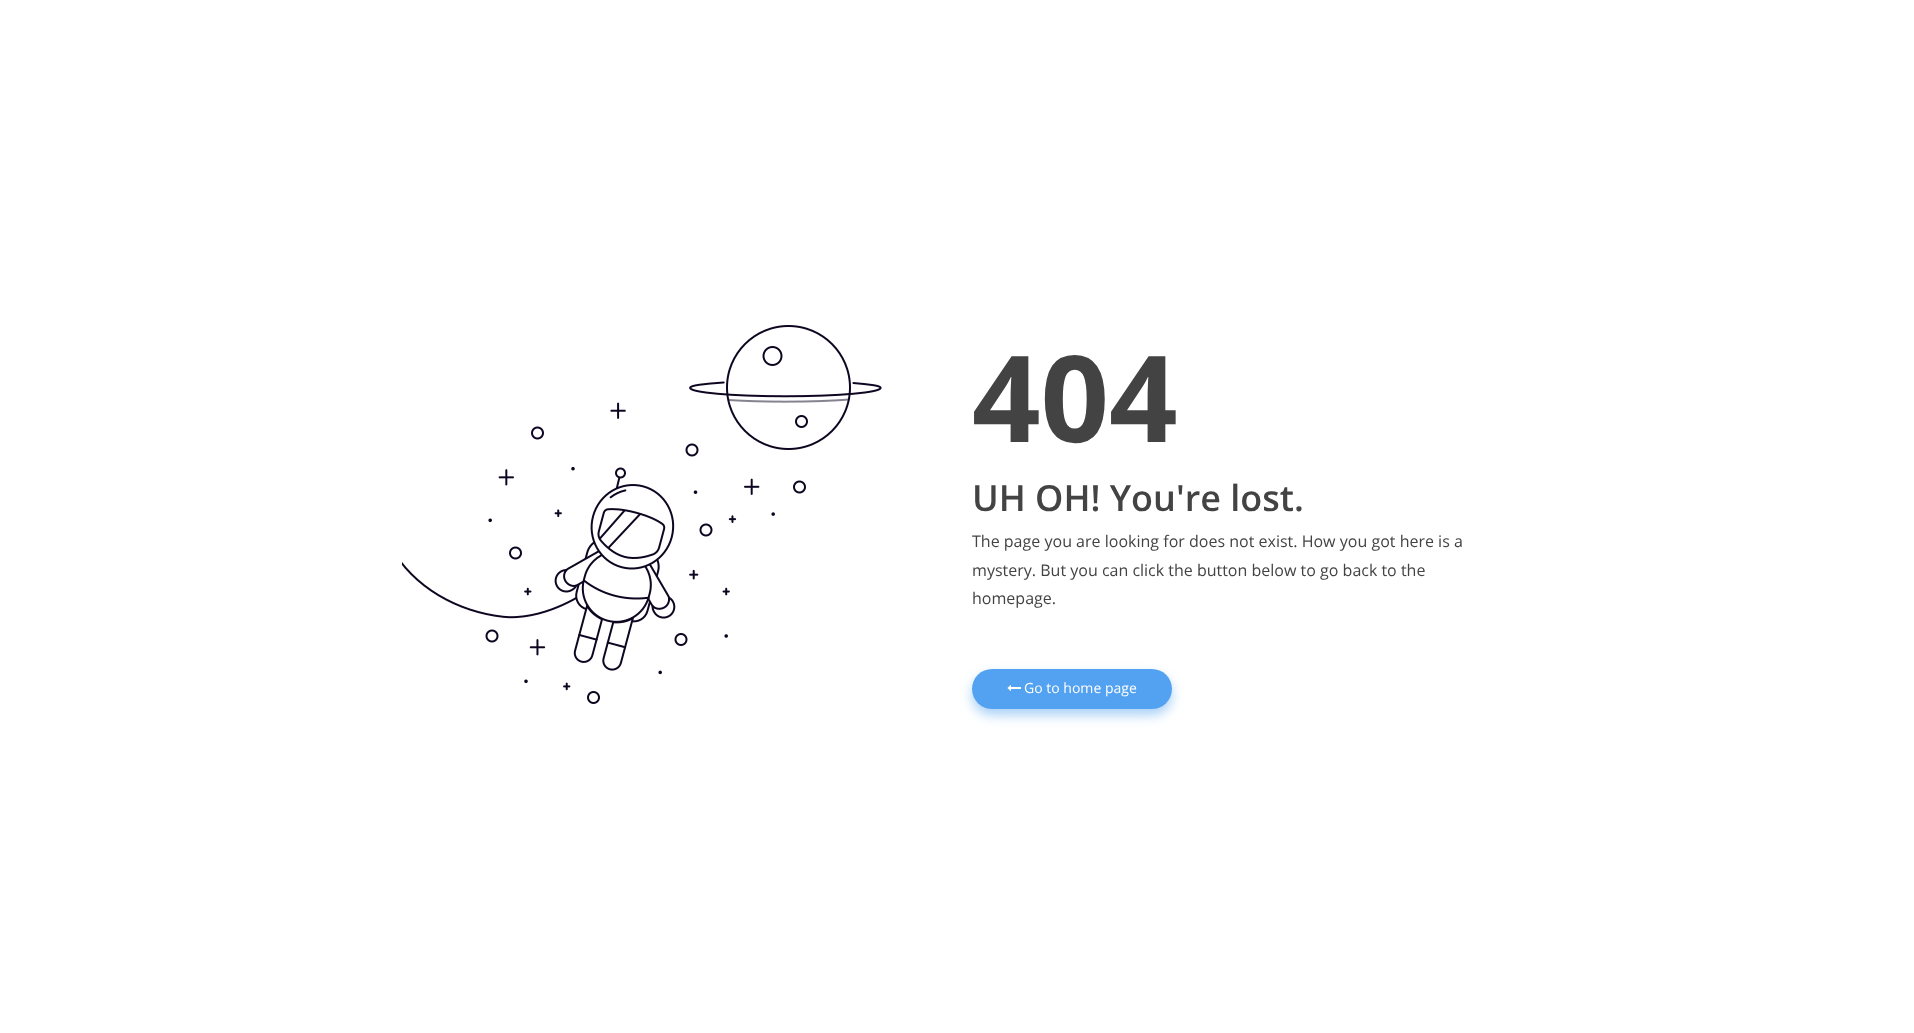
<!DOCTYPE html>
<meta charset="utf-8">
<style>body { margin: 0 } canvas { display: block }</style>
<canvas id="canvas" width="1914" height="1033"></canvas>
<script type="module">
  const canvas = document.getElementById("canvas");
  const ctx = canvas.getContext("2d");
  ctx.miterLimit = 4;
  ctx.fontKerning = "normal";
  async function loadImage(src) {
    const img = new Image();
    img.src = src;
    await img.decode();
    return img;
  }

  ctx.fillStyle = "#ffffff";
  ctx.fillRect(0, 0, 1914, 1033);
  ctx.drawImage(await loadImage("img1.png"), 402, 325, 480, 379);
  ctx.font = "bold 120px Open Sans";
  ctx.fillStyle = "#434343";
  ctx.fillText("404", 972, 442);
  ctx.font = "600 36px Open Sans";
  ctx.fillText("UH OH! You're lost.", 972, 511);
  ctx.font = "16px Open Sans";
  ctx.fillText("The page you are looking for does not exist. How you got here is a", 972, 547);
  ctx.fillText("mystery. But you can click the button below to go back to the", 972, 576);
  ctx.fillText("homepage.", 972, 604);
  ctx.save();
  ctx.beginPath();
  ctx.moveTo(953, 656);
  ctx.lineTo(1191, 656);
  ctx.lineTo(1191, 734);
  ctx.lineTo(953, 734);
  ctx.closePath();
  ctx.moveTo(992, 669);
  ctx.lineTo(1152, 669);
  ctx.bezierCurveTo(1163, 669, 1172, 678, 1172, 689);
  ctx.bezierCurveTo(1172, 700, 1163, 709, 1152, 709);
  ctx.lineTo(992, 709);
  ctx.bezierCurveTo(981, 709, 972, 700, 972, 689);
  ctx.bezierCurveTo(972, 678, 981, 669, 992, 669);
  ctx.closePath();
  ctx.clip("evenodd");
  ctx.fillStyle = "rgba(39, 139, 237, 0.4)";
  ctx.filter = "blur(6px)";
  ctx.beginPath();
  ctx.roundRect(972, 675, 200, 40, 20);
  ctx.fill();
  ctx.filter = "none";
  ctx.restore();
  ctx.fillStyle = "rgba(39, 139, 237, 0.8)";
  ctx.beginPath();
  ctx.roundRect(972, 669, 200, 40, 20);
  ctx.fill();
  ctx.drawImage(await loadImage("img2.png"), 1007, 685, 14, 6);
  ctx.font = "14px Open Sans";
  ctx.fillStyle = "#ffffff";
  ctx.fillText("Go to home page", 1024, 693);
</script>
